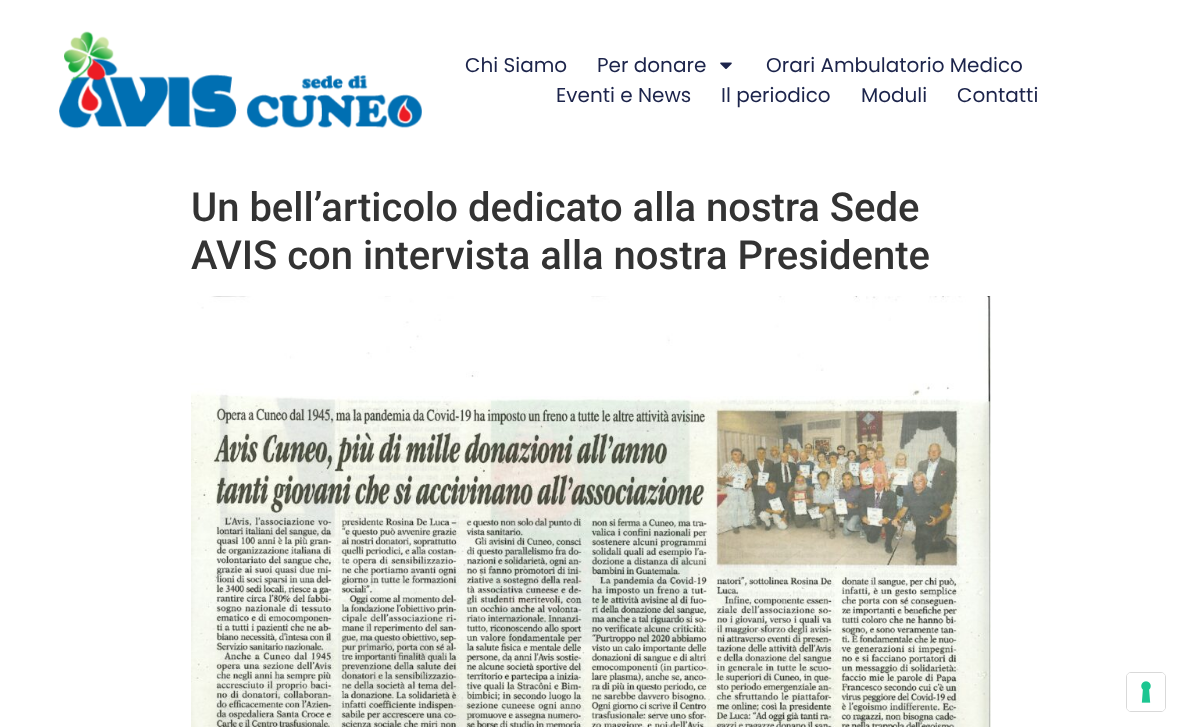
<!DOCTYPE html>
<meta charset="utf-8">
<style>body { margin: 0 } canvas { display: block }</style>
<canvas id="canvas" width="1181" height="727"></canvas>
<script type="module">
  const canvas = document.getElementById("canvas");
  const ctx = canvas.getContext("2d");
  ctx.miterLimit = 4;
  ctx.fontKerning = "normal";
  async function loadImage(src) {
    const img = new Image();
    img.src = src;
    await img.decode();
    return img;
  }

  ctx.fillStyle = "#ffffff";
  ctx.fillRect(0, 0, 1181, 727);
  ctx.drawImage(await loadImage("img1.png"), 59, 31, 363, 98);
  ctx.font = "20px Poppins";
  ctx.fillStyle = "#1c244b";
  ctx.fillText("Chi Siamo", 465, 72);
  ctx.fillText("Per donare", 597, 72);
  ctx.drawImage(await loadImage("img2.png"), 720, 62, 12, 7);
  ctx.fillText("Orari Ambulatorio Medico", 766, 72);
  ctx.fillText("Eventi e News", 556, 102);
  ctx.fillText("Il periodico", 721, 102);
  ctx.fillText("Moduli", 861, 102);
  ctx.fillText("Contatti", 957, 102);
  ctx.font = "500 40px Roboto";
  ctx.fillStyle = "#333333";
  ctx.fillText("Un bell’articolo dedicato alla nostra Sede", 191, 221);
  ctx.fillText("AVIS con intervista alla nostra Presidente", 191, 269);
  ctx.drawImage(await loadImage("img3.png"), 191, 296, 800, 431);
  ctx.beginPath();
  ctx.roundRect(1126.5, 672.5, 39, 39, 4.5);
  ctx.strokeStyle = "#d9d9d9";
  ctx.stroke();
  ctx.fillStyle = "#ffffff";
  ctx.beginPath();
  ctx.roundRect(1127, 673, 38, 38, 4);
  ctx.fill();
  ctx.drawImage(await loadImage("img4.png"), 1141, 681, 10, 22);
</script>
